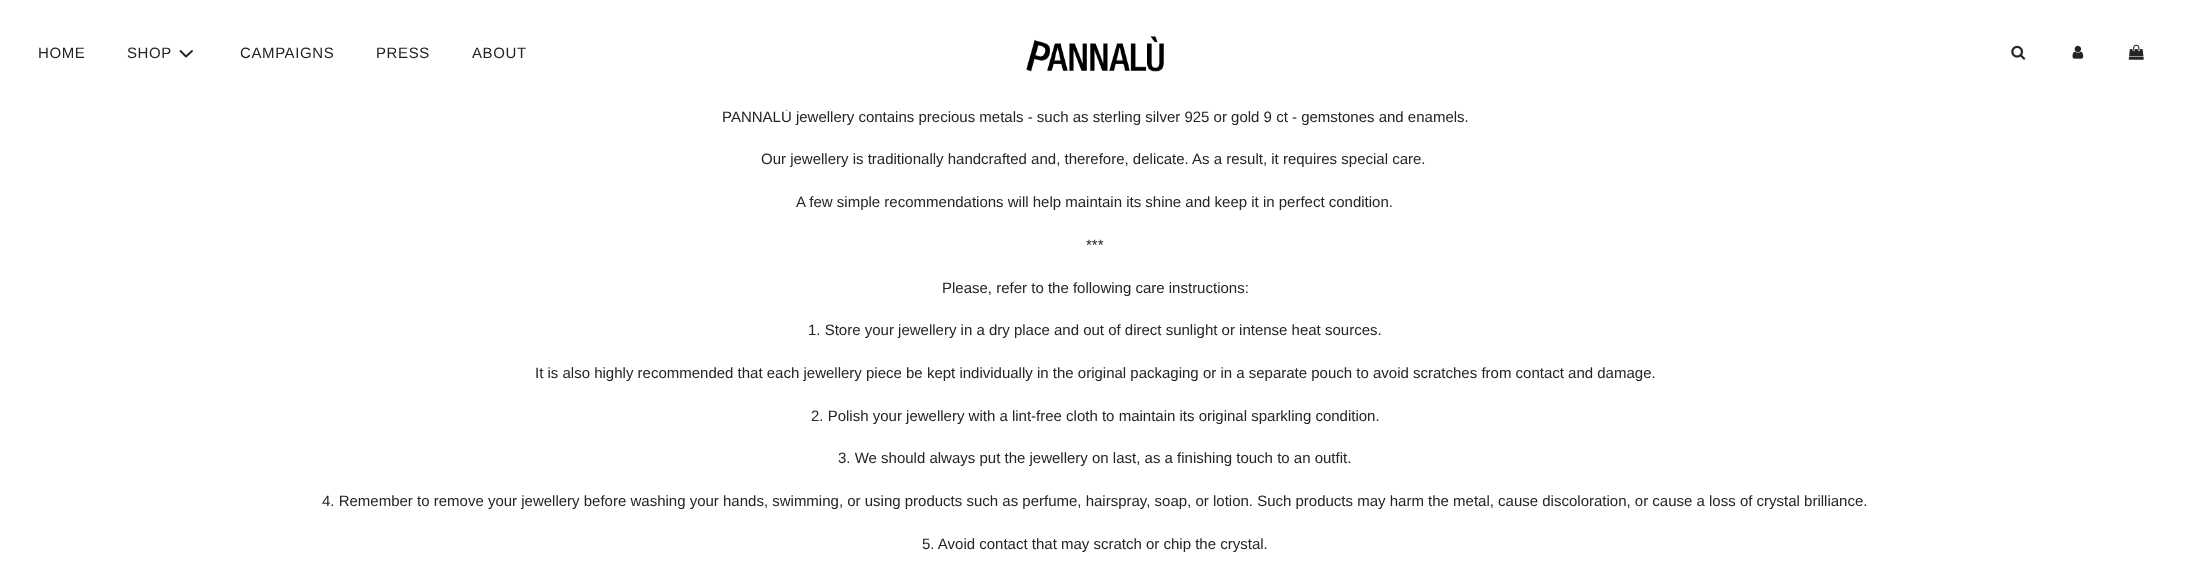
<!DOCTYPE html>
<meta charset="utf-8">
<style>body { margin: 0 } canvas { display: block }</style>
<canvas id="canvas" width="2189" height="573"></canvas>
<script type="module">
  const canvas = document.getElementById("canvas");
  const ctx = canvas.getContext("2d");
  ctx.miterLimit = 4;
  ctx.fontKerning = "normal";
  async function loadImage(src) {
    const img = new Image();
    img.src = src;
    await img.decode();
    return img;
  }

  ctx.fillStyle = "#ffffff";
  ctx.fillRect(0, 0, 2189, 573);
  ctx.font = "15px Liberation Sans";
  ctx.fillStyle = "#242424";
  ctx.fillText("PANNALÙ jewellery contains precious metals - such as sterling silver 925 or gold 9 ct - gemstones and enamels.", 722, 122);
  ctx.fillStyle = "#ffffff";
  ctx.fillRect(784, 109, 3, 1);
  ctx.letterSpacing = "0.6px";
  ctx.fillStyle = "#242424";
  ctx.fillText("HOME", 38, 58);
  ctx.fillText("SHOP", 127, 58);
  ctx.beginPath();
  ctx.moveTo(180.5, 51);
  ctx.lineTo(186, 56.5);
  ctx.lineTo(192, 51);
  ctx.strokeStyle = "#242424";
  ctx.lineWidth = 1.9;
  ctx.lineCap = "round";
  ctx.lineJoin = "round";
  ctx.stroke();
  ctx.fillText("CAMPAIGNS", 240, 58);
  ctx.fillText("PRESS", 376, 58);
  ctx.fillText("ABOUT", 472, 58);
  ctx.drawImage(await loadImage("img1.png"), 1026, 36, 138, 36);
  ctx.drawImage(await loadImage("img2.png"), 2011, 45, 15, 15);
  ctx.drawImage(await loadImage("img3.png"), 2072, 45, 12, 14);
  ctx.drawImage(await loadImage("img4.png"), 2128, 44, 16, 16);
  ctx.letterSpacing = "0px";
  ctx.fillText("Our jewellery is traditionally handcrafted and, therefore, delicate. As a result, it requires special care.", 761, 164);
  ctx.fillText("A few simple recommendations will help maintain its shine and keep it in perfect condition.", 796, 207);
  ctx.fillText("***", 1086, 250);
  ctx.fillText("Please, refer to the following care instructions:", 942, 293);
  ctx.fillText("1. Store your jewellery in a dry place and out of direct sunlight or intense heat sources.", 808, 335);
  ctx.fillText("It is also highly recommended that each jewellery piece be kept individually in the original packaging or in a separate pouch to avoid scratches from contact and damage.", 535, 378);
  ctx.fillText("2. Polish your jewellery with a lint-free cloth to maintain its original sparkling condition.", 811, 421);
  ctx.fillText("3. We should always put the jewellery on last, as a finishing touch to an outfit.", 838, 463);
  ctx.fillText("4. Remember to remove your jewellery before washing your hands, swimming, or using products such as perfume, hairspray, soap, or lotion. Such products may harm the metal, cause discoloration, or cause a loss of crystal brilliance.", 322, 506);
  ctx.fillText("5. Avoid contact that may scratch or chip the crystal.", 922, 549);
</script>
